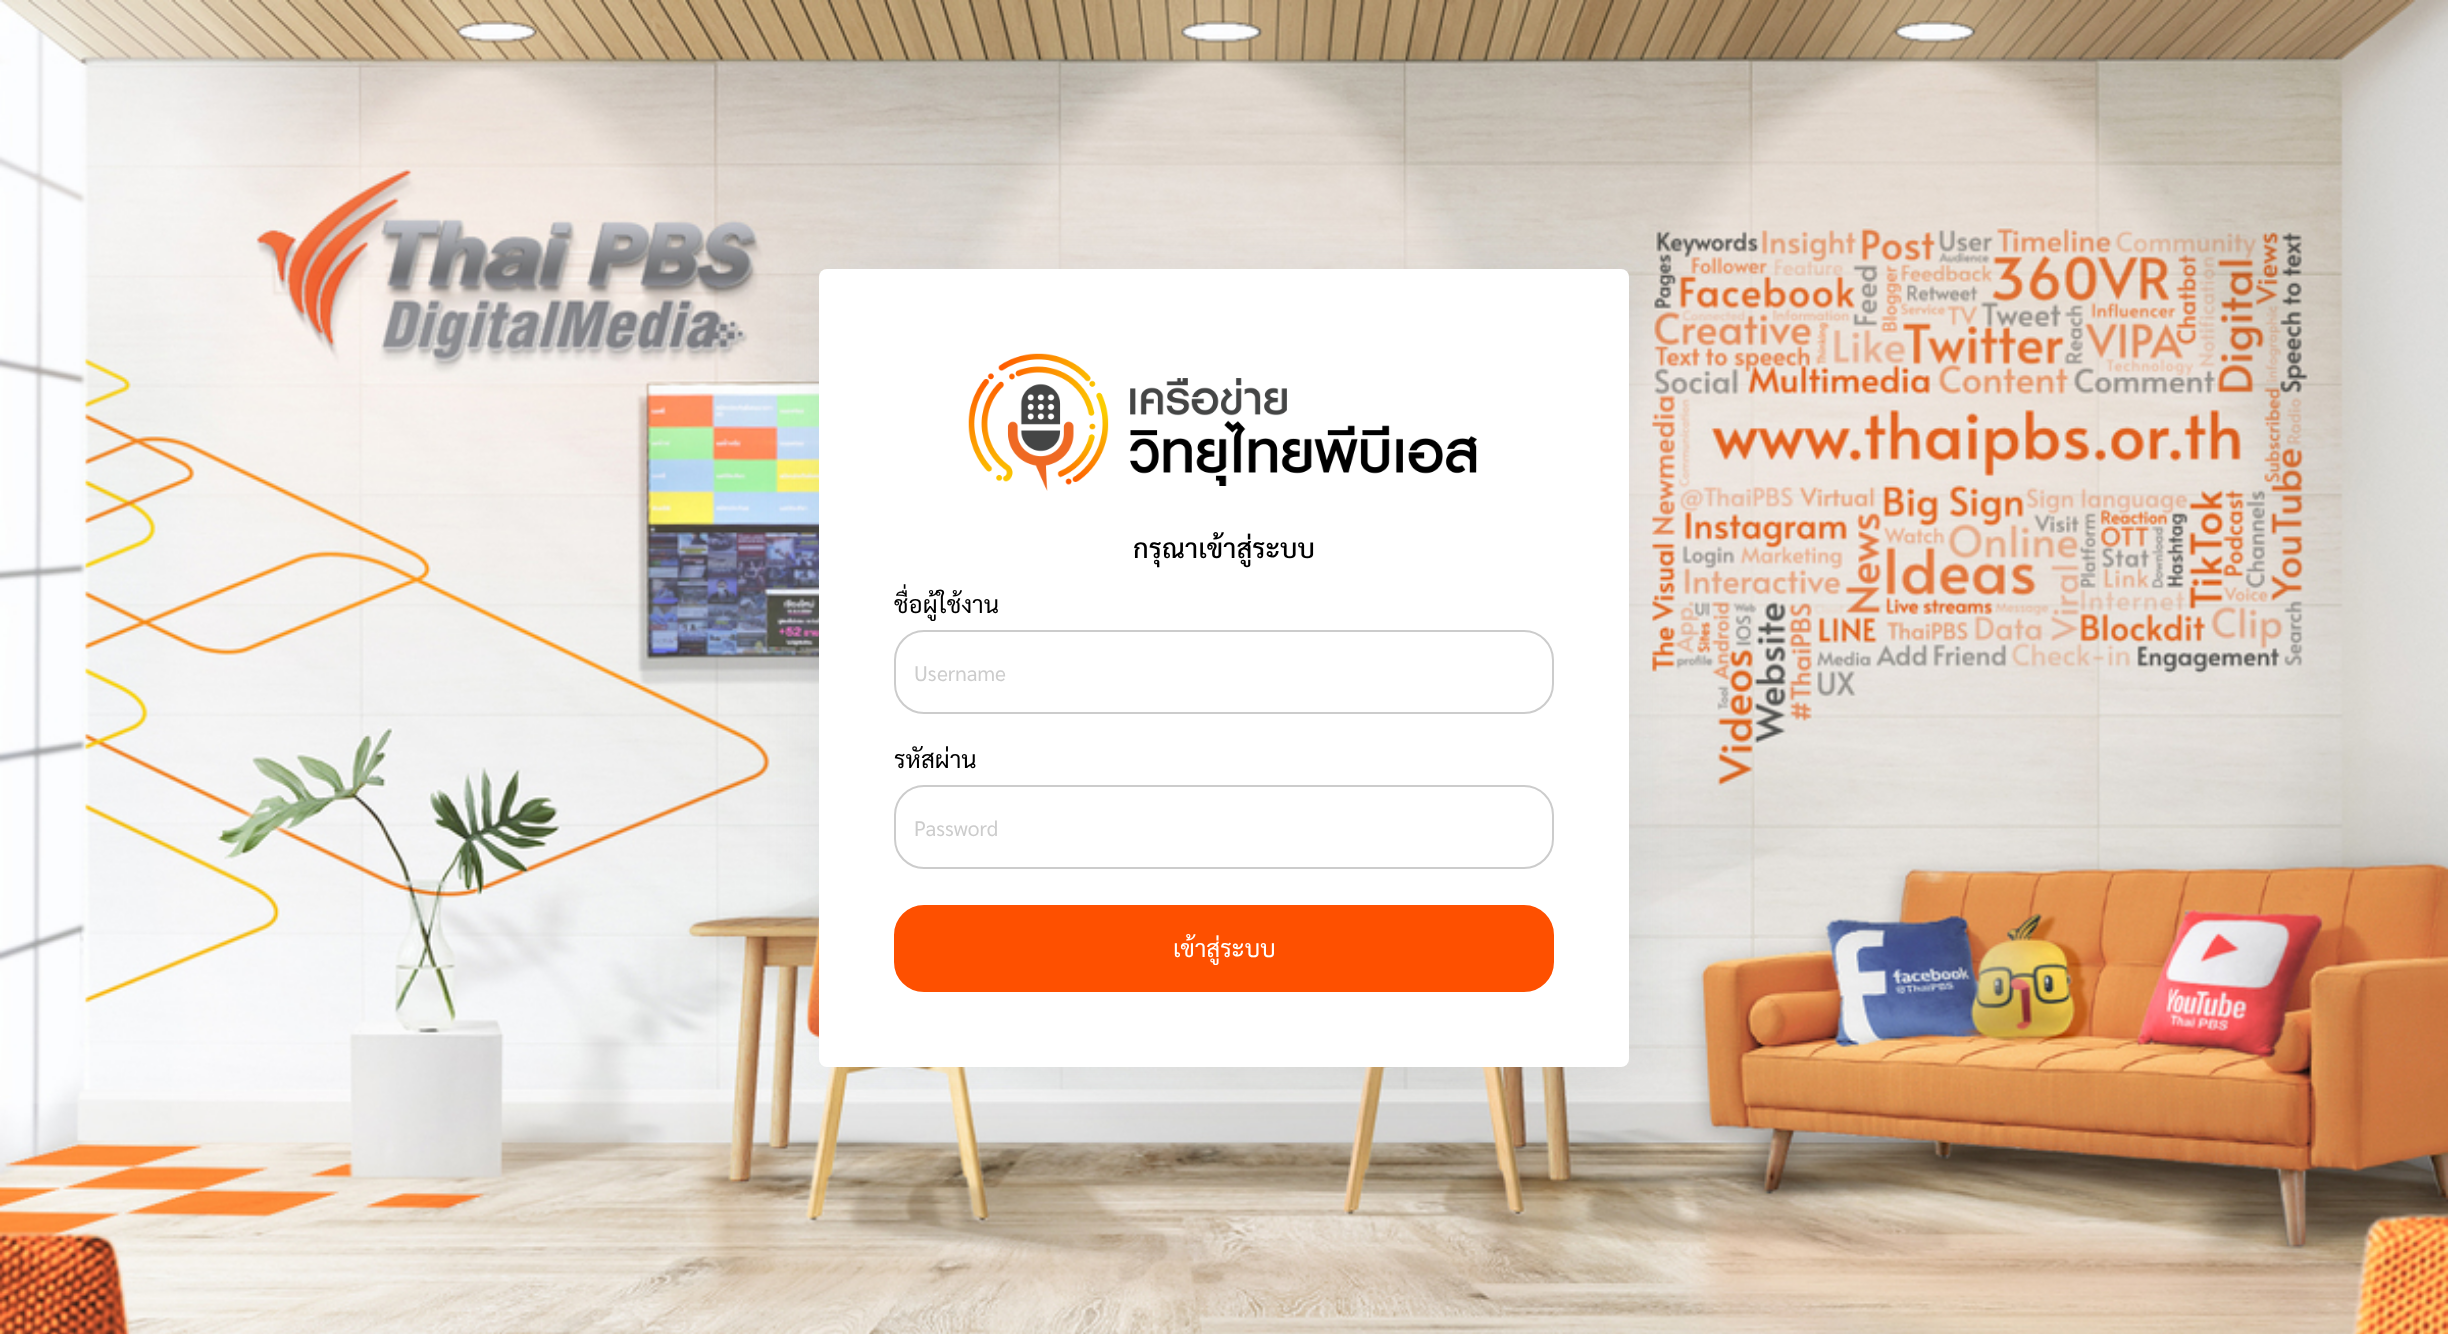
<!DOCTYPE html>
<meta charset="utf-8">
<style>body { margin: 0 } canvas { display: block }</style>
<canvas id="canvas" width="2448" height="1334"></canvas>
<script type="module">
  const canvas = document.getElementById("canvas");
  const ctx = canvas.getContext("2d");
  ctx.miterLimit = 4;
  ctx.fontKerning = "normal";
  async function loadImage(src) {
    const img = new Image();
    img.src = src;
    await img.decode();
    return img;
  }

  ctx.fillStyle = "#ffffff";
  ctx.fillRect(0, 0, 2448, 1334);
  ctx.drawImage(await loadImage("img1.png"), 0, 0, 2448, 1334);
  ctx.fillStyle = "rgba(154, 161, 171, 0.15)";
  ctx.filter = "blur(26px)";
  ctx.beginPath();
  ctx.roundRect(819, 269, 810, 798, 8);
  ctx.fill();
  ctx.filter = "none";
  ctx.fillStyle = "#ffffff";
  ctx.beginPath();
  ctx.roundRect(819, 269, 810, 798, 8);
  ctx.fill();
  ctx.drawImage(await loadImage("img2.png"), 968, 353, 509, 138);
  ctx.font = "500 27px Sarabun";
  ctx.fillStyle = "#000000";
  ctx.fillText("กรุณาเข้าสู่ระบบ", 1133, 558);
  ctx.font = "24px Sarabun";
  ctx.fillText("ชื่อผู้ใช้งาน", 894, 613);
  ctx.beginPath();
  ctx.roundRect(895, 631, 658, 82, 29);
  ctx.strokeStyle = "#cccccc";
  ctx.lineWidth = 2;
  ctx.stroke();
  ctx.font = "21px Sarabun";
  ctx.fillStyle = "#cccccc";
  ctx.fillText("Username", 914, 681);
  ctx.font = "24px Sarabun";
  ctx.fillStyle = "#000000";
  ctx.fillText("รหัสผ่าน", 894, 768);
  ctx.beginPath();
  ctx.roundRect(895, 786, 658, 82, 29);
  ctx.stroke();
  ctx.font = "21px Sarabun";
  ctx.fillStyle = "#cccccc";
  ctx.fillText("Password", 914, 836);
  ctx.fillStyle = "#fe5000";
  ctx.beginPath();
  ctx.roundRect(895, 906, 658, 85, 29);
  ctx.fill();
  ctx.strokeStyle = "#fe5000";
  ctx.stroke();
  ctx.font = "24px Sarabun";
  ctx.fillStyle = "#ffffff";
  ctx.fillText("เข้าสู่ระบบ", 1173, 957);
</script>
